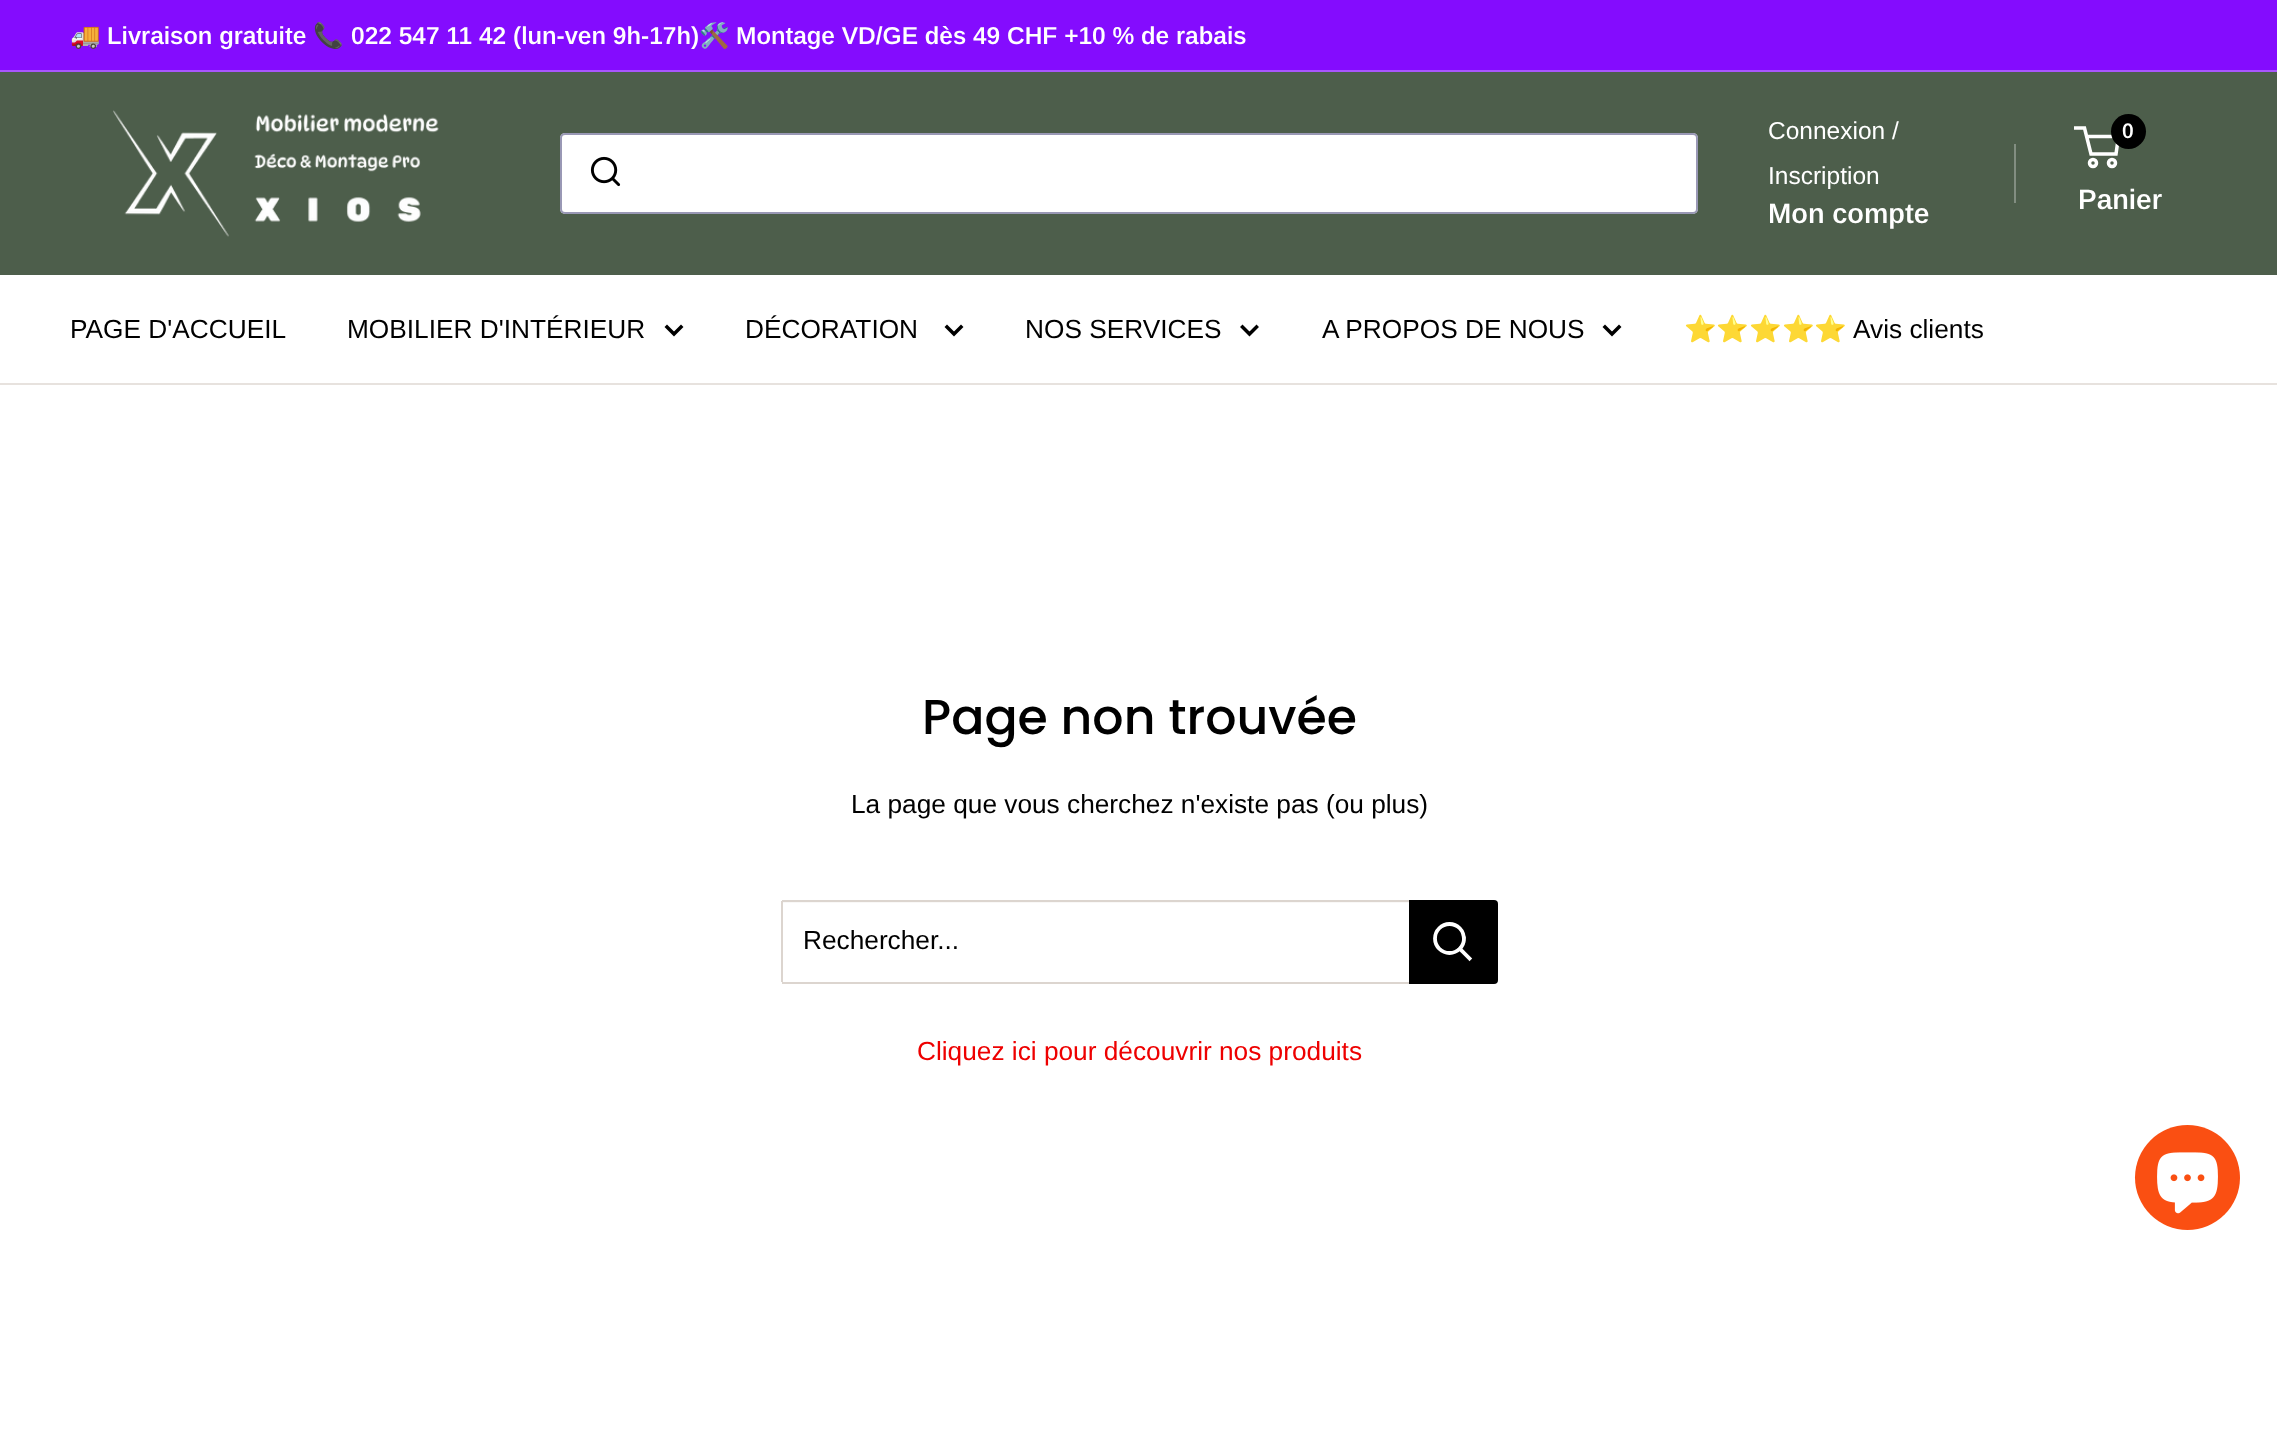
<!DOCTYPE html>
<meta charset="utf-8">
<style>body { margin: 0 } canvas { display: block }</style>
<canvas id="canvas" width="2277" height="1448"></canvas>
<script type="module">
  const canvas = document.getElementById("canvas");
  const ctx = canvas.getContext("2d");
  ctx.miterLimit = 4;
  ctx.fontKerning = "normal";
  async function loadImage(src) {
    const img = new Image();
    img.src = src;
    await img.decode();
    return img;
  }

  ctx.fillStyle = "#ffffff";
  ctx.fillRect(0, 0, 2277, 1448);
  ctx.fillStyle = "#840cfe";
  ctx.fillRect(0, 0, 2277, 70);
  ctx.fillStyle = "#a955fe";
  ctx.fillRect(0, 70, 2277, 2);
  ctx.font = "bold 24.5px Noto Color Emoji";
  ctx.fillStyle = "#ffffff";
  ctx.fillText("🚚", 70, 44);
  ctx.font = "600 24.5px Arimo";
  ctx.fillText("Livraison gratuite", 107, 44);
  ctx.font = "bold 24.5px Noto Color Emoji";
  ctx.fillText("📞", 313, 44);
  ctx.font = "600 24.5px Arimo";
  ctx.fillText("022 547 11 42 (lun-ven 9h-17h)", 351, 44);
  ctx.font = "bold 24.5px Noto Color Emoji";
  ctx.fillText("🛠️", 699, 44);
  ctx.font = "600 24.5px Arimo";
  ctx.fillText("Montage VD/GE dès 49 CHF +10 % de rabais", 736, 44);
  ctx.fillStyle = "#4d5e4b";
  ctx.fillRect(0, 72, 2277, 203);
  ctx.drawImage(await loadImage("img1.png"), 113, 110, 326, 127);
  ctx.fillStyle = "#ffffff";
  ctx.beginPath();
  ctx.roundRect(560, 133, 1138, 81, 5);
  ctx.fill();
  ctx.beginPath();
  ctx.roundRect(561, 134, 1136, 79, 4);
  ctx.strokeStyle = "rgba(128, 126, 163, 0.8)";
  ctx.lineWidth = 2;
  ctx.stroke();
  ctx.drawImage(await loadImage("img2.png"), 590, 156, 31, 31);
  ctx.font = "24.5px Arimo";
  ctx.fillText("Connexion /", 1768, 139);
  ctx.fillText("Inscription", 1768, 184);
  ctx.fillStyle = "#828e81";
  ctx.fillRect(2014, 144, 2, 59);
  ctx.font = "600 28px Arimo";
  ctx.fillStyle = "#ffffff";
  ctx.fillText("Mon compte", 1768, 223);
  ctx.beginPath();
  ctx.arc(2093, 163, 3.5, 0, Math.PI * 2);
  ctx.strokeStyle = "#ffffff";
  ctx.lineWidth = 3.5;
  ctx.stroke();
  ctx.beginPath();
  ctx.arc(2112, 163, 3.5, 0, Math.PI * 2);
  ctx.stroke();
  ctx.beginPath();
  ctx.moveTo(2086.5, 136.5);
  ctx.lineTo(2118.5, 136.5);
  ctx.lineTo(2116, 154);
  ctx.lineTo(2091, 154);
  ctx.lineTo(2084.5, 128);
  ctx.lineTo(2074, 128);
  ctx.stroke();
  ctx.fillStyle = "#000000";
  ctx.beginPath();
  ctx.arc(2128.5, 131.5, 17.5, 0, Math.PI * 2);
  ctx.fill();
  ctx.font = "600 21px Arimo";
  ctx.fillStyle = "#ffffff";
  ctx.fillText("0", 2122, 138);
  ctx.font = "600 28px Arimo";
  ctx.fillText("Panier", 2078, 209);
  ctx.fillStyle = "#e7e2de";
  ctx.fillRect(0, 383, 2277, 2);
  ctx.font = "26.25px Arimo";
  ctx.fillStyle = "#000000";
  ctx.fillText("PAGE D'ACCUEIL", 70, 338);
  ctx.fillText("MOBILIER D'INTÉRIEUR", 347, 338);
  ctx.beginPath();
  ctx.moveTo(681, 327);
  ctx.lineTo(674, 334);
  ctx.lineTo(667, 327);
  ctx.strokeStyle = "#000000";
  ctx.lineCap = "square";
  ctx.stroke();
  ctx.fillText("DÉCORATION", 745, 338);
  ctx.beginPath();
  ctx.moveTo(961, 327);
  ctx.lineTo(954, 334);
  ctx.lineTo(947, 327);
  ctx.stroke();
  ctx.fillText("NOS SERVICES", 1025, 338);
  ctx.beginPath();
  ctx.moveTo(1256.5, 327);
  ctx.lineTo(1249.5, 334);
  ctx.lineTo(1242.5, 327);
  ctx.stroke();
  ctx.fillText("A PROPOS DE NOUS", 1322, 338);
  ctx.beginPath();
  ctx.moveTo(1619, 327);
  ctx.lineTo(1612, 334);
  ctx.lineTo(1605, 327);
  ctx.stroke();
  ctx.font = "26.25px Noto Color Emoji";
  ctx.fillText("⭐⭐⭐⭐⭐", 1684, 338);
  ctx.font = "26.25px Arimo";
  ctx.fillText("Avis clients", 1853, 338);
  ctx.font = "500 49px Poppins";
  ctx.fillText("Page non trouvée", 922, 734);
  ctx.font = "26.25px Arimo";
  ctx.fillText("La page que vous cherchez n'existe pas (ou plus)", 851, 813);
  ctx.fillStyle = "#f9f8f7";
  ctx.beginPath();
  ctx.moveTo(784, 903);
  ctx.lineTo(1409, 903);
  ctx.lineTo(1409, 901);
  ctx.lineTo(784, 901);
  ctx.bezierCurveTo(782, 901, 782, 903, 782, 905);
  ctx.bezierCurveTo(782, 904, 783, 903, 784, 903);
  ctx.closePath();
  ctx.fill();
  ctx.fillStyle = "#dcd5cf";
  ctx.fillRect(782, 900, 627, 2);
  ctx.fillRect(782, 982, 627, 2);
  ctx.fillRect(781, 901, 2, 81);
  ctx.fillStyle = "#000000";
  ctx.fillText("Rechercher...", 803, 949);
  ctx.beginPath();
  ctx.roundRect(1409, 900, 89, 84, [0, 4, 4, 0]);
  ctx.fill();
  ctx.beginPath();
  ctx.moveTo(1469.5, 958.5);
  ctx.lineTo(1460, 949);
  ctx.strokeStyle = "#ffffff";
  ctx.lineWidth = 3.8;
  ctx.stroke();
  ctx.beginPath();
  ctx.arc(1449.5, 938.5, 14.5, 0, Math.PI * 2);
  ctx.stroke();
  ctx.fillStyle = "#ee0000";
  ctx.fillText("Cliquez ici pour découvrir nos produits", 917, 1060);
  ctx.fillStyle = "#fa4f12";
  ctx.beginPath();
  ctx.arc(2187.5, 1177.5, 52.5, 0, Math.PI * 2);
  ctx.fill();
  ctx.drawImage(await loadImage("img3.png"), 2157, 1152, 61, 62);
</script>
